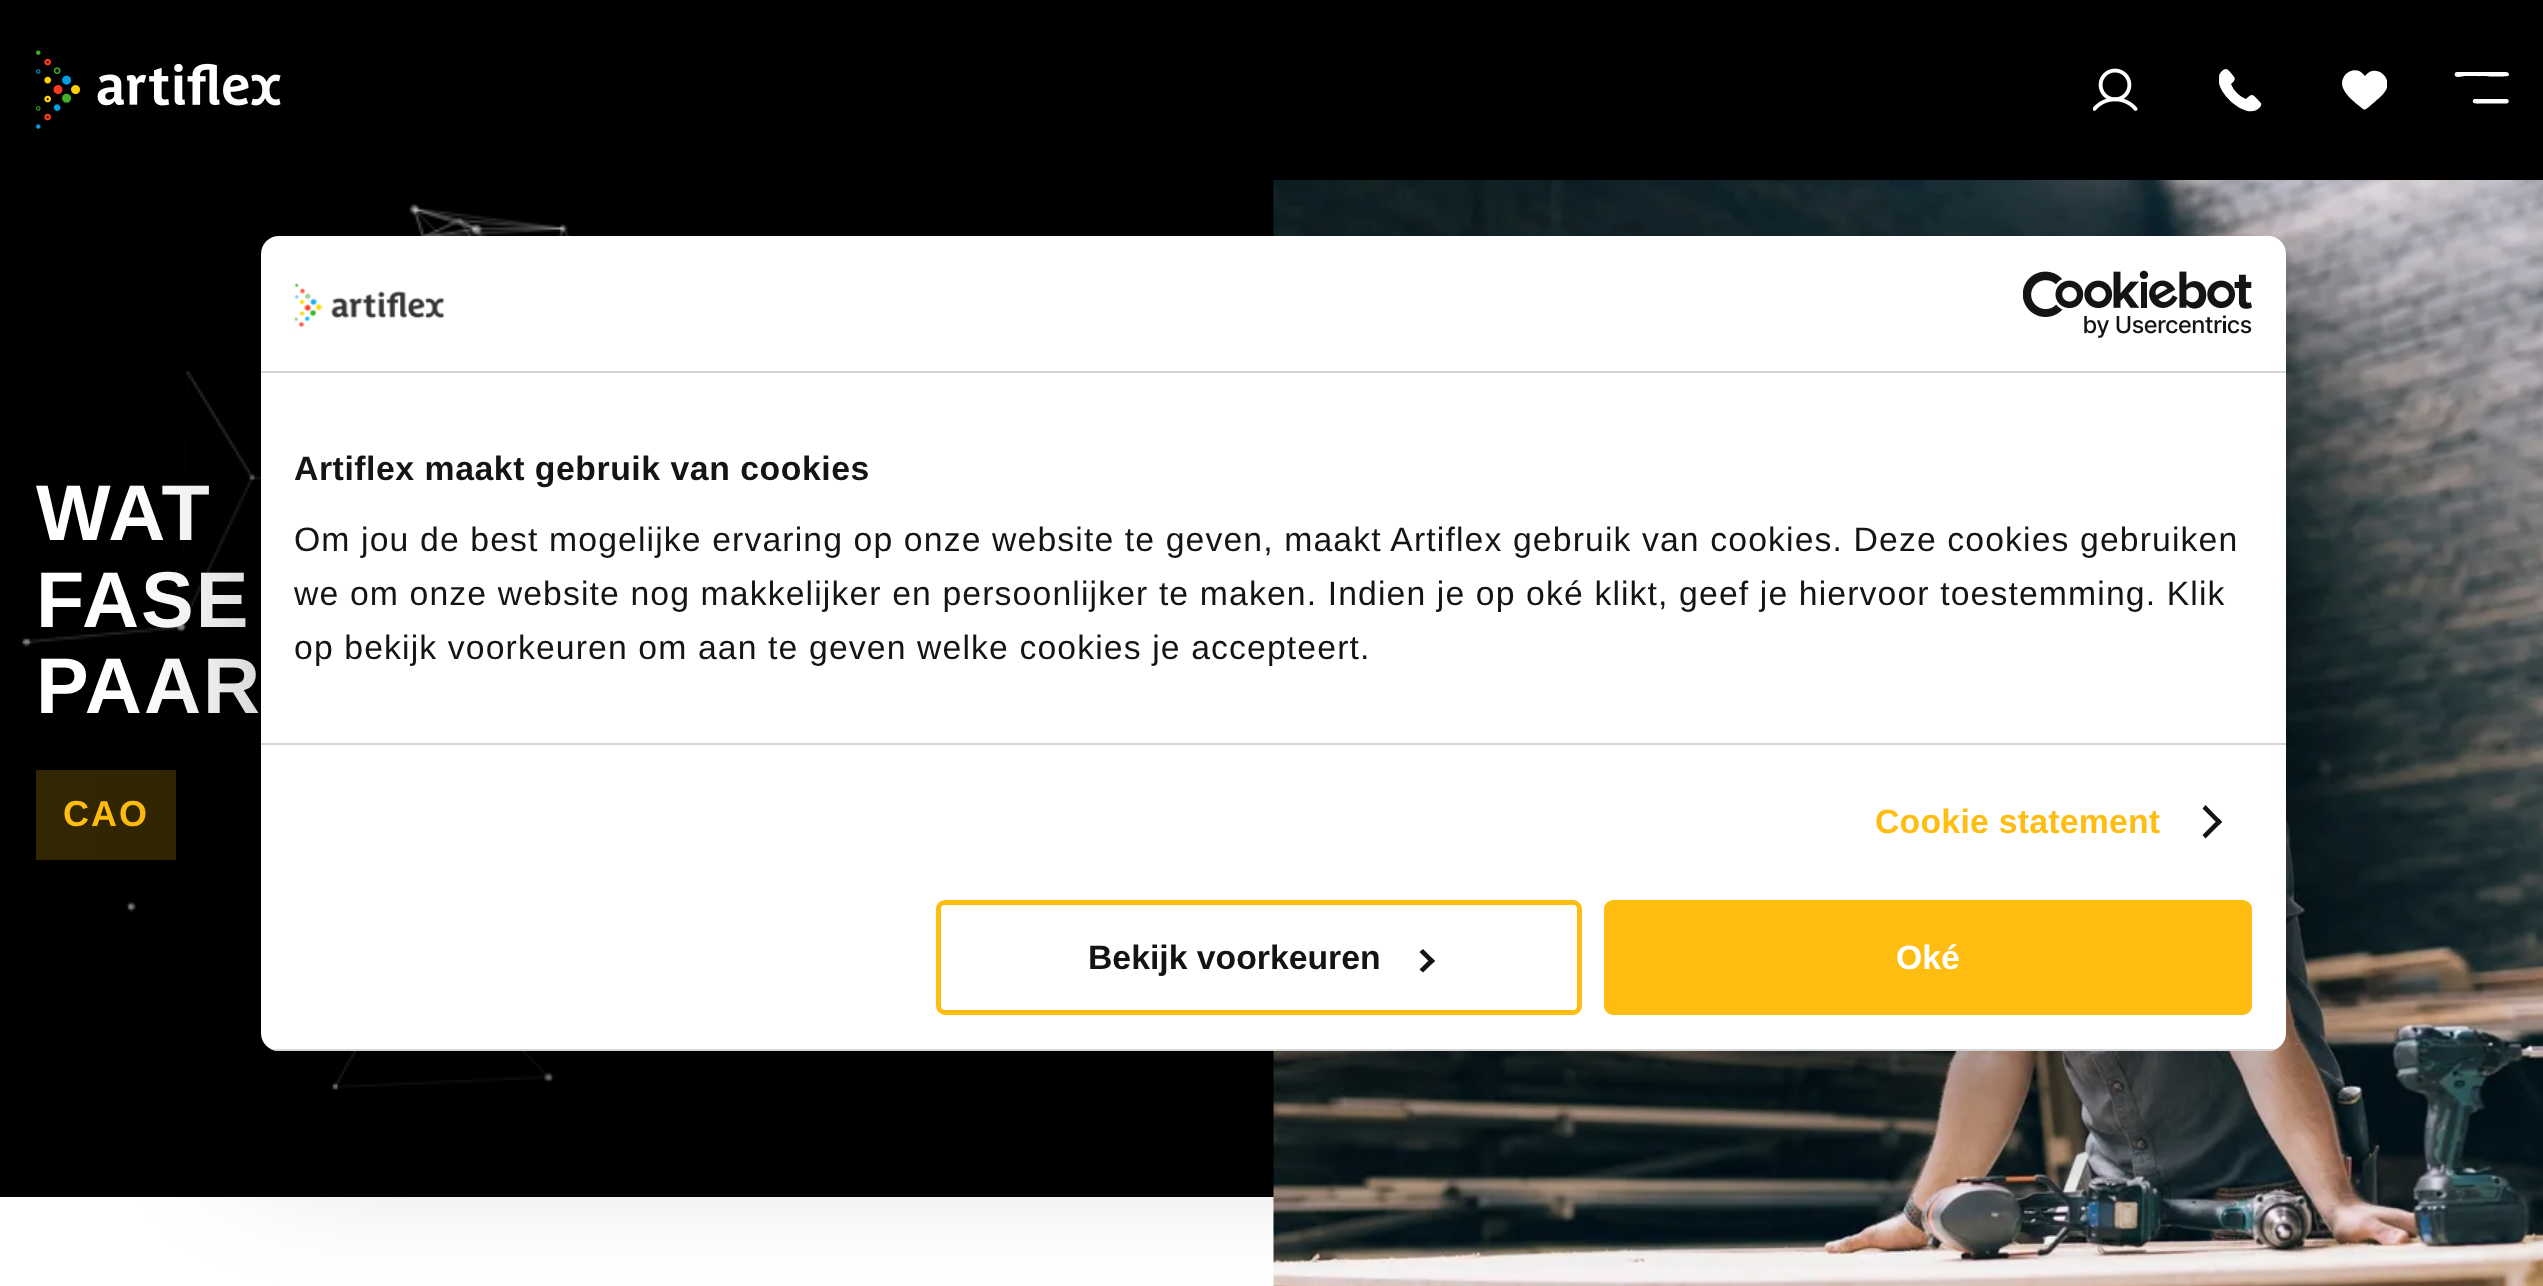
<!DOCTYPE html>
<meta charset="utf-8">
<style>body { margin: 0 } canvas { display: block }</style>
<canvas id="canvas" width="2543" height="1286"></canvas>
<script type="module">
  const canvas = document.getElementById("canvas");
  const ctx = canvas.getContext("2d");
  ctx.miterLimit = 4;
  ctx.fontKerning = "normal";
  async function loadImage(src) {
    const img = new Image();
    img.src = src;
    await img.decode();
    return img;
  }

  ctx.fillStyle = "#ffffff";
  ctx.fillRect(0, 0, 2543, 1286);
  ctx.fillStyle = "#000000";
  ctx.fillRect(0, 0, 2543, 180);
  ctx.drawImage(await loadImage("img1.png"), 36, 50, 245, 79);
  ctx.drawImage(await loadImage("img2.png"), 2093, 68, 45, 43);
  ctx.save();
  ctx.beginPath();
  ctx.rect(2219, 68, 45, 45);
  ctx.clip();
  ctx.fillStyle = "#ffffff";
  ctx.beginPath();
  ctx.moveTo(2260, 102);
  ctx.bezierCurveTo(2253, 95, 2253, 92, 2246, 99);
  ctx.bezierCurveTo(2239, 96, 2234, 91, 2231, 84);
  ctx.bezierCurveTo(2236, 79, 2236, 79, 2231, 73);
  ctx.bezierCurveTo(2227, 69, 2226, 67, 2221, 72);
  ctx.bezierCurveTo(2209, 87, 2244, 120, 2258, 109);
  ctx.bezierCurveTo(2260, 107, 2263, 105, 2260, 102);
  ctx.closePath();
  ctx.fill();
  ctx.restore();
  ctx.save();
  ctx.beginPath();
  ctx.rect(2342, 68, 45, 45);
  ctx.clip();
  ctx.fillStyle = "#ffffff";
  ctx.beginPath();
  ctx.moveTo(2363, 109);
  ctx.bezierCurveTo(2366, 111, 2368, 107, 2370, 106);
  ctx.bezierCurveTo(2375, 101, 2382, 97, 2386, 90);
  ctx.bezierCurveTo(2393, 76, 2374, 63, 2365, 76);
  ctx.bezierCurveTo(2355, 62, 2336, 76, 2344, 90);
  ctx.bezierCurveTo(2347, 96, 2353, 101, 2358, 105);
  ctx.moveTo(2363, 109);
  ctx.lineTo(2358, 105);
  ctx.closePath();
  ctx.fill("evenodd");
  ctx.restore();
  ctx.fillStyle = "#ffffff";
  ctx.beginPath();
  ctx.moveTo(2506, 72);
  ctx.lineTo(2457, 72);
  ctx.bezierCurveTo(2455, 72, 2454, 74, 2455, 76);
  ctx.bezierCurveTo(2458, 78, 2462, 76, 2465, 76);
  ctx.bezierCurveTo(2470, 76, 2506, 77, 2508, 76);
  ctx.bezierCurveTo(2510, 75, 2509, 72, 2506, 72);
  ctx.closePath();
  ctx.moveTo(2506.5, 99);
  ctx.lineTo(2474, 99);
  ctx.bezierCurveTo(2472.5, 100, 2472.5, 102, 2473.5, 103);
  ctx.bezierCurveTo(2475.5, 104, 2480, 103.5, 2480, 103.5);
  ctx.lineTo(2506.5, 103.5);
  ctx.bezierCurveTo(2509.5, 103.5, 2509.5, 99, 2506.5, 99);
  ctx.closePath();
  ctx.fill();
  ctx.fillStyle = "#000000";
  ctx.fillRect(0, 180, 1274, 1017);
  ctx.fillStyle = "#332603";
  ctx.fillRect(36, 770, 140, 90);
  ctx.letterSpacing = "2px";
  ctx.font = "bold 36px Liberation Sans";
  ctx.fillStyle = "#ffbc11";
  ctx.fillText("CAO", 63, 826);
  ctx.drawImage(await loadImage("img3.png"), 22, 204, 548, 886);
  ctx.drawImage(await loadImage("img4.png"), 1273, 180, 1270, 1106);
  ctx.font = "bold 79px Liberation Sans";
  ctx.fillStyle = "#ffffff";
  ctx.fillText("WAT", 36, 540);
  ctx.fillText("FASE", 36, 627);
  ctx.fillText("PAAR", 36, 713);
  ctx.fillStyle = "rgba(0, 0, 0, 0.3)";
  ctx.filter = "blur(76.5px)";
  ctx.beginPath();
  ctx.roundRect(261, 308, 2025, 815, 18);
  ctx.fill();
  ctx.filter = "none";
  ctx.fillStyle = "#ffffff";
  ctx.beginPath();
  ctx.roundRect(261, 236, 2025, 815, 18);
  ctx.fill();
  ctx.fillStyle = "#d6d6d6";
  ctx.fillRect(261, 371, 2025, 2);
  ctx.drawImage(await loadImage("img5.png"), 294, 283, 151, 46);
  ctx.drawImage(await loadImage("img6.png"), 2023, 270, 229, 68);
  ctx.fillRect(261, 743, 2025, 2);
  ctx.letterSpacing = "0.55px";
  ctx.font = "bold 33.75px Liberation Sans";
  ctx.fillStyle = "#141414";
  ctx.fillText("Artiflex maakt gebruik van cookies", 294, 480);
  ctx.letterSpacing = "1.12px";
  ctx.font = "33.75px Liberation Sans";
  ctx.fillText("Om jou de best mogelijke ervaring op onze website te geven, maakt Artiflex gebruik van cookies. Deze cookies gebruiken", 294, 551);
  ctx.fillText("we om onze website nog makkelijker en persoonlijker te maken. Indien je op oké klikt, geef je hiervoor toestemming. Klik", 294, 605);
  ctx.fillText("op bekijk voorkeuren om aan te geven welke cookies je accepteert.", 294, 659);
  ctx.letterSpacing = "0.25px";
  ctx.font = "bold 33.75px Liberation Sans";
  ctx.fillStyle = "#ffbc11";
  ctx.fillText("Cookie statement", 1875, 833);
  ctx.fillStyle = "#141414";
  ctx.beginPath();
  ctx.moveTo(2205.5, 805);
  ctx.lineTo(2222, 822);
  ctx.lineTo(2219, 825);
  ctx.lineTo(2202.5, 808.5);
  ctx.closePath();
  ctx.fill();
  ctx.beginPath();
  ctx.moveTo(2219, 818.5);
  ctx.lineTo(2222, 822);
  ctx.lineTo(2205.5, 838.5);
  ctx.lineTo(2202.5, 835);
  ctx.closePath();
  ctx.fill();
  ctx.save();
  ctx.beginPath();
  ctx.roundRect(261, 236, 2025, 815, 18);
  ctx.clip();
  ctx.fillStyle = "#d6d6d6";
  ctx.fillRect(271, 1049, 2005, 2);
  ctx.restore();
  ctx.beginPath();
  ctx.roundRect(938.5, 902.5, 641, 110, 6.5);
  ctx.strokeStyle = "#ffbc11";
  ctx.lineWidth = 5;
  ctx.stroke();
  ctx.letterSpacing = "0px";
  ctx.fillText("Bekijk voorkeuren", 1088, 969);
  ctx.beginPath();
  ctx.moveTo(1423, 949);
  ctx.lineTo(1435, 961);
  ctx.lineTo(1431.5, 964);
  ctx.lineTo(1419.5, 952);
  ctx.closePath();
  ctx.fill();
  ctx.beginPath();
  ctx.moveTo(1431.5, 957.5);
  ctx.lineTo(1435, 961);
  ctx.lineTo(1423, 972.5);
  ctx.lineTo(1419.5, 969.5);
  ctx.closePath();
  ctx.fill();
  ctx.fillStyle = "#ffbc11";
  ctx.beginPath();
  ctx.roundRect(1606.5, 902.5, 643, 110, 6.5);
  ctx.fill();
  ctx.stroke();
  ctx.fillStyle = "#ffffff";
  ctx.fillText("Oké", 1896, 969);
</script>
